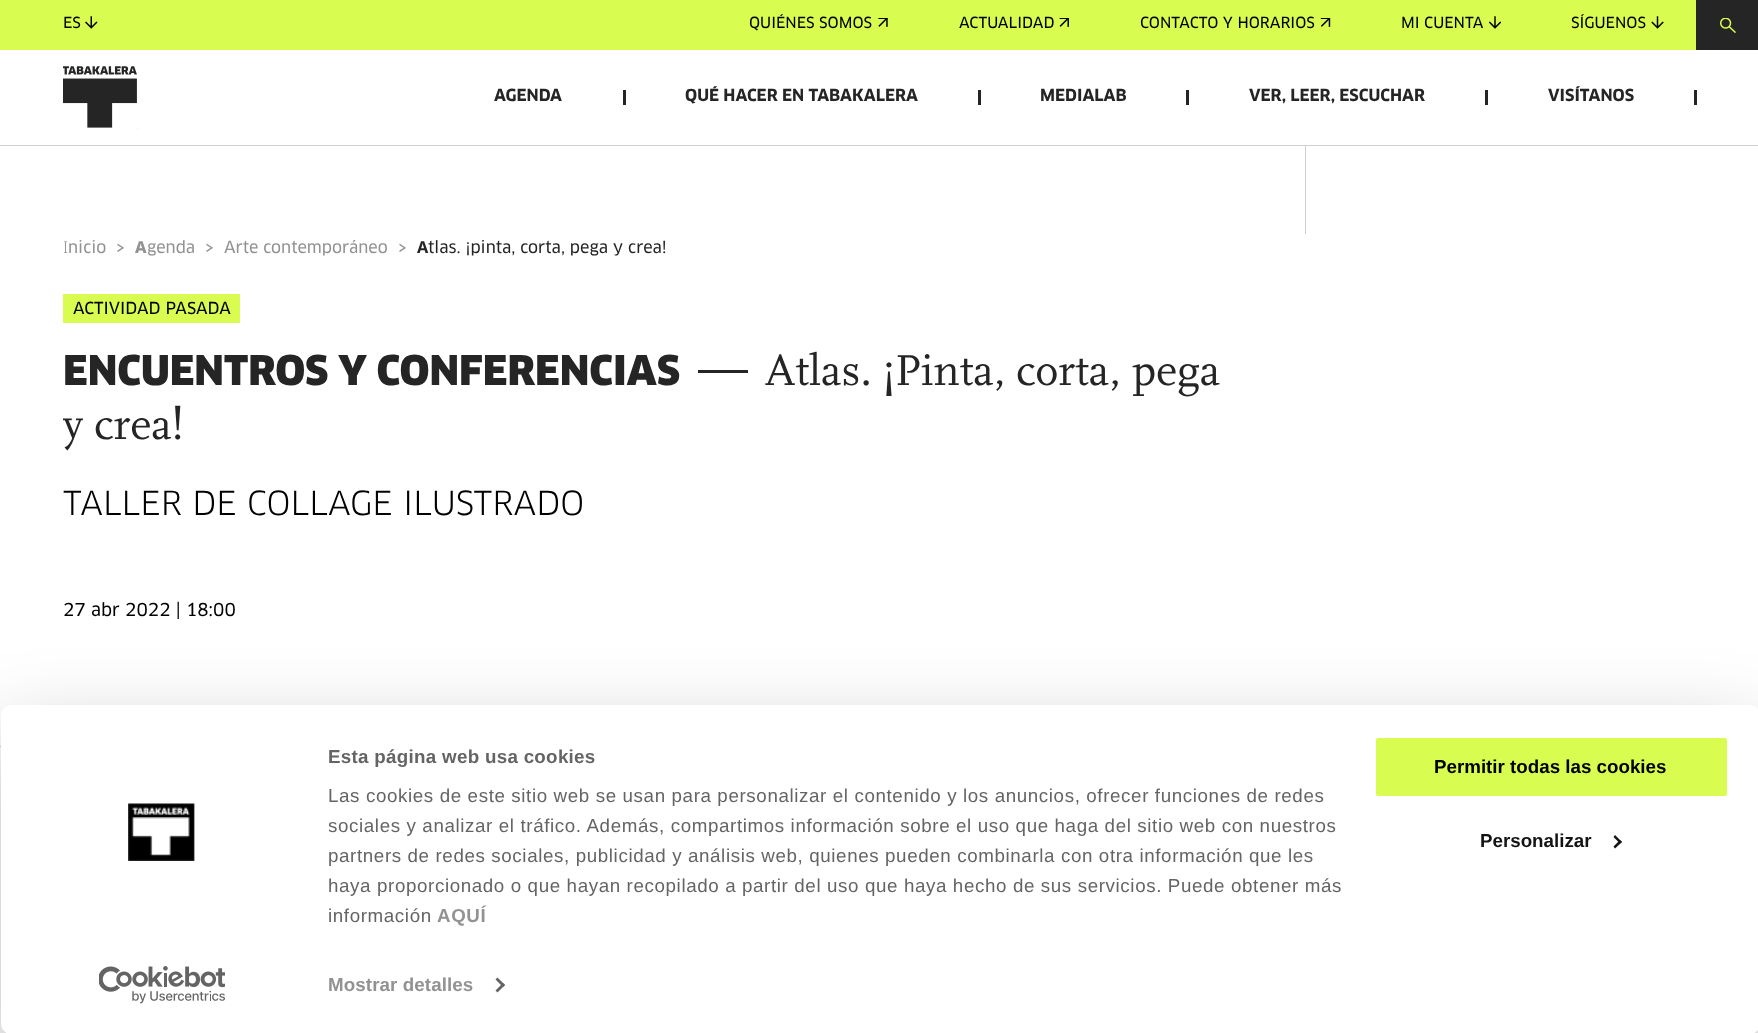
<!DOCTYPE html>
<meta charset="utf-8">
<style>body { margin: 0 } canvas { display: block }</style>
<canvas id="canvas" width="1758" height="1033"></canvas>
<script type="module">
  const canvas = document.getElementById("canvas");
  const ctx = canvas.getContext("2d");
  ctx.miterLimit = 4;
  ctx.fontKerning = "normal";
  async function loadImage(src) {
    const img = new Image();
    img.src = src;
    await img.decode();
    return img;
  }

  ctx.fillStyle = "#ffffff";
  ctx.fillRect(0, 0, 1758, 1033);
  ctx.fillStyle = "#d8fd50";
  ctx.fillRect(0, 0, 1696, 50);
  ctx.font = "500 15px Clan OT";
  ctx.fillStyle = "#000000";
  ctx.fillText("ES", 63, 28);
  ctx.drawImage(await loadImage("img1.png"), 85, 16, 13, 13);
  ctx.fillText("QUIÉNES SOMOS", 749, 28);
  ctx.drawImage(await loadImage("img2.png"), 878, 18, 10, 9);
  ctx.fillText("ACTUALIDAD", 959, 28);
  ctx.drawImage(await loadImage("img3.png"), 1059, 18, 10, 9);
  ctx.fillText("CONTACTO Y HORARIOS", 1140, 28);
  ctx.drawImage(await loadImage("img4.png"), 1320, 18, 11, 9);
  ctx.fillText("MI CUENTA", 1401, 28);
  ctx.drawImage(await loadImage("img5.png"), 1489, 16, 12, 13);
  ctx.fillText("SÍGUENOS", 1571, 28);
  ctx.drawImage(await loadImage("img6.png"), 1651, 16, 13, 13);
  ctx.fillStyle = "#252525";
  ctx.fillRect(1696, 0, 62, 50);
  ctx.drawImage(await loadImage("img7.png"), 1720, 18, 16, 15);
  ctx.fillStyle = "#d0d0d0";
  ctx.fillRect(0, 145, 1758, 1);
  ctx.drawImage(await loadImage("img8.png"), 63, 66, 75, 63);
  ctx.font = "bold 16.25px Clan OT";
  ctx.fillStyle = "#252525";
  ctx.fillText("AGENDA", 494, 101);
  ctx.fillRect(623, 90, 3, 15);
  ctx.fillText("QUÉ HACER EN TABAKALERA", 685, 101);
  ctx.fillRect(978, 90, 3, 15);
  ctx.fillText("MEDIALAB", 1040, 101);
  ctx.fillRect(1186, 90, 3, 15);
  ctx.fillText("VER, LEER, ESCUCHAR", 1249, 101);
  ctx.fillRect(1485, 90, 3, 15);
  ctx.fillText("VISÍTANOS", 1548, 101);
  ctx.fillRect(1694, 90, 3, 15);
  ctx.fillStyle = "#d0d0d0";
  ctx.fillRect(1305, 146, 1, 88);
  ctx.font = "300 16.25px Noto Sans";
  ctx.fillStyle = "#929292";
  ctx.fillText("I", 63, 253);
  ctx.font = "500 16.25px Clan OT";
  ctx.fillText("nicio", 68, 253);
  ctx.font = "500 22px Clan OT";
  ctx.fillText("›", 116, 255);
  ctx.font = "800 16.25px Noto Sans";
  ctx.fillText("A", 135, 253);
  ctx.font = "500 16.25px Clan OT";
  ctx.fillText("genda", 147, 253);
  ctx.font = "500 22px Clan OT";
  ctx.fillText("›", 205, 255);
  ctx.font = "500 16.25px Clan OT";
  ctx.fillText("Arte contemporáneo", 224, 253);
  ctx.font = "500 22px Clan OT";
  ctx.fillText("›", 398, 255);
  ctx.font = "bold 16.25px Noto Sans";
  ctx.fillStyle = "#252525";
  ctx.fillText("A", 417, 253);
  ctx.font = "500 16.25px Clan OT";
  ctx.fillText("tlas. ¡pinta, corta, pega y crea!", 428, 253);
  ctx.fillStyle = "#d8fd50";
  ctx.fillRect(63, 294, 177, 29);
  ctx.fillStyle = "#000000";
  ctx.fillText("ACTIVIDAD PASADA", 73, 314);
  ctx.font = "900 40px ClanOT";
  ctx.fillStyle = "#252525";
  ctx.fillText("ENCUENTROS Y CONFERENCIAS", 63, 385);
  ctx.fillRect(698, 370, 50, 3);
  ctx.font = "45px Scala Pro";
  ctx.fillText("Atlas. ¡Pinta, corta, pega", 765, 385);
  ctx.fillText("y crea!", 63, 439);
  ctx.font = "32.5px Clan OT";
  ctx.fillStyle = "#000000";
  ctx.fillText("TALLER DE COLLAGE ILUSTRADO", 63, 515);
  ctx.font = "500 17.5px Clan OT";
  ctx.fillText("27 abr 2022 | 18:00", 63, 616);
  ctx.fillStyle = "#d0d0d0";
  ctx.fillRect(0, 746, 1, 1);
  ctx.fillStyle = "rgba(0, 0, 0, 0.3)";
  ctx.filter = "blur(44px)";
  ctx.beginPath();
  ctx.roundRect(1, 743, 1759, 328, 10);
  ctx.fill();
  ctx.filter = "none";
  ctx.fillStyle = "#ffffff";
  ctx.beginPath();
  ctx.roundRect(1, 705, 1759, 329, 10);
  ctx.fill();
  ctx.drawImage(await loadImage("img9.png"), 128, 803, 67, 58);
  ctx.drawImage(await loadImage("img10.png"), 99, 966, 126, 38);
  ctx.save();
  ctx.beginPath();
  ctx.rect(329, 743, 1036, 188);
  ctx.clip();
  ctx.letterSpacing = "0.3px";
  ctx.font = "bold 18.75px Liberation Sans";
  ctx.fillStyle = "#646464";
  ctx.fillText("Esta página web usa cookies", 328, 763);
  ctx.restore();
  ctx.letterSpacing = "0.62px";
  ctx.font = "18.75px Liberation Sans";
  ctx.fillStyle = "#646464";
  ctx.fillText("Las cookies de este sitio web se usan para personalizar el contenido y los anuncios, ofrecer funciones de redes", 328, 802);
  ctx.save();
  ctx.beginPath();
  ctx.rect(329, 743, 1036, 188);
  ctx.clip();
  ctx.fillText("sociales y analizar el tráfico. Además, compartimos información sobre el uso que haga del sitio web con nuestros", 328, 832);
  ctx.fillText("partners de redes sociales, publicidad y análisis web, quienes pueden combinarla con otra información que les", 328, 862);
  ctx.restore();
  ctx.fillText("haya proporcionado o que hayan recopilado a partir del uso que haya hecho de sus servicios. Puede obtener más", 328, 892);
  ctx.save();
  ctx.beginPath();
  ctx.rect(329, 743, 1036, 188);
  ctx.clip();
  ctx.fillText("información", 328, 922);
  ctx.restore();
  ctx.font = "bold 18.75px Liberation Sans";
  ctx.fillStyle = "#929292";
  ctx.fillText("AQUÍ", 437, 922);
  ctx.letterSpacing = "0.1px";
  ctx.fillText("Mostrar detalles", 328, 991);
  ctx.fillStyle = "#646464";
  ctx.beginPath();
  ctx.moveTo(497.5, 977.5);
  ctx.lineTo(505, 985);
  ctx.lineTo(503, 987);
  ctx.lineTo(495.5, 979.5);
  ctx.closePath();
  ctx.fill();
  ctx.beginPath();
  ctx.moveTo(503, 983);
  ctx.lineTo(505, 985);
  ctx.lineTo(497.5, 992.5);
  ctx.lineTo(495.5, 990.5);
  ctx.closePath();
  ctx.fill();
  ctx.fillStyle = "#d8fd50";
  ctx.beginPath();
  ctx.roundRect(1374.5, 736.5, 354, 61, 3.5);
  ctx.fill();
  ctx.strokeStyle = "#ffffff";
  ctx.lineWidth = 3;
  ctx.stroke();
  ctx.letterSpacing = "0px";
  ctx.fillStyle = "#000000";
  ctx.fillText("Permitir todas las cookies", 1434, 773);
  ctx.fillStyle = "#141414";
  ctx.fillText("Personalizar", 1480, 847);
  ctx.beginPath();
  ctx.moveTo(1615, 835);
  ctx.lineTo(1622, 842);
  ctx.lineTo(1620, 843.5);
  ctx.lineTo(1613.5, 837);
  ctx.closePath();
  ctx.fill();
  ctx.beginPath();
  ctx.moveTo(1620, 840);
  ctx.lineTo(1622, 842);
  ctx.lineTo(1615, 848.5);
  ctx.lineTo(1613.5, 846.5);
  ctx.closePath();
  ctx.fill();
</script>
